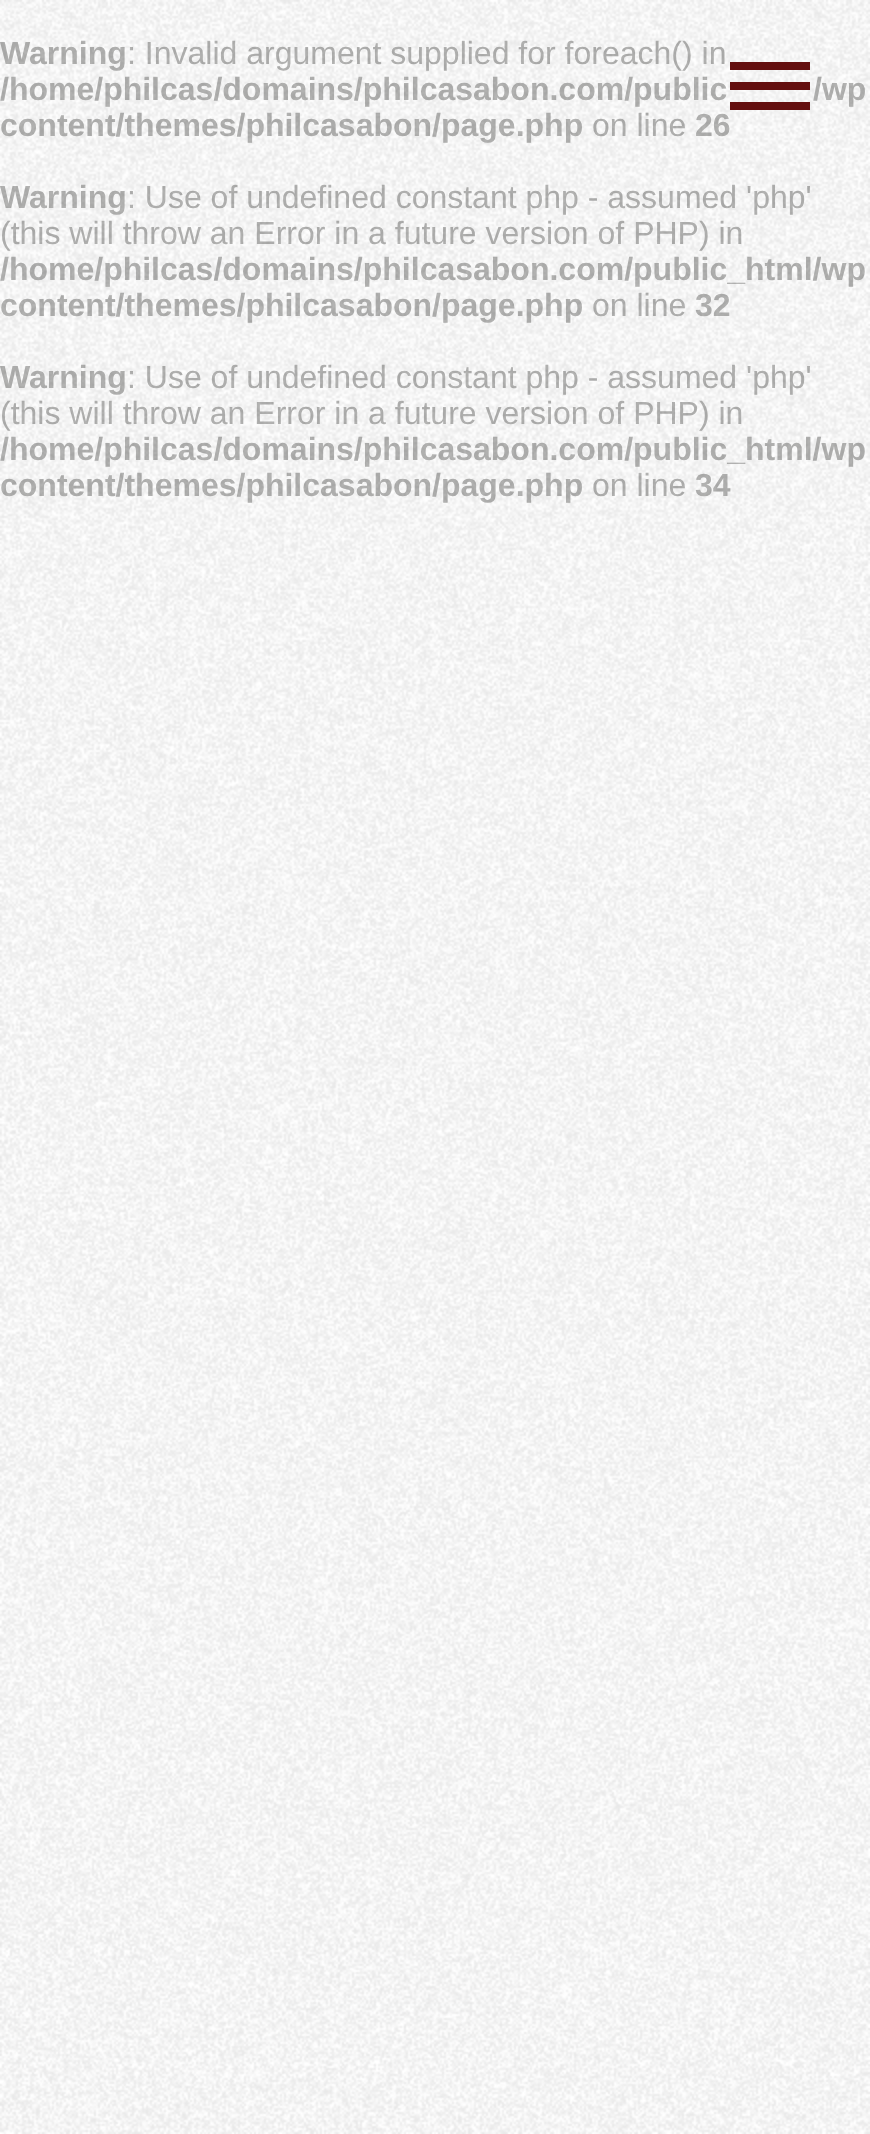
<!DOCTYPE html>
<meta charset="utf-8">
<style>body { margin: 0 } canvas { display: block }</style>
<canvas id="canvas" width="870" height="2134"></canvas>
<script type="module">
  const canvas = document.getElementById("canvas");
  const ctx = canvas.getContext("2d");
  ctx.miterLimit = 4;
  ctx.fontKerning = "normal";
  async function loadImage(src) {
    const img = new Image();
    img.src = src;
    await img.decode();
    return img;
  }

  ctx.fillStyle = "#ffffff";
  ctx.fillRect(0, 0, 870, 2134);
  ctx.font = "bold 32px Liberation Sans";
  ctx.fillStyle = "#b5b5b4";
  ctx.fillText("Warning", 0, 64);
  ctx.font = "32px Liberation Sans";
  ctx.fillText(": Invalid argument supplied for foreach() in", 127, 64);
  ctx.font = "bold 32px Liberation Sans";
  ctx.fillText("/home/philcas/domains/philcasabon.com/public", 0, 100);
  ctx.fillText("/wp", 813, 100);
  ctx.fillText("content/themes/philcasabon/page.php", 0, 136);
  ctx.font = "32px Liberation Sans";
  ctx.fillText("on line", 592, 136);
  ctx.font = "bold 32px Liberation Sans";
  ctx.fillText("26", 695, 136);
  ctx.fillText("Warning", 0, 208);
  ctx.font = "32px Liberation Sans";
  ctx.fillText(": Use of undefined constant php - assumed 'php'", 127, 208);
  ctx.fillText("(this will throw an Error in a future version of PHP) in", 0, 244);
  ctx.font = "bold 32px Liberation Sans";
  ctx.fillText("/home/philcas/domains/philcasabon.com/public_html/wp", 0, 280);
  ctx.fillText("content/themes/philcasabon/page.php", 0, 316);
  ctx.font = "32px Liberation Sans";
  ctx.fillText("on line", 592, 316);
  ctx.font = "bold 32px Liberation Sans";
  ctx.fillText("32", 695, 316);
  ctx.fillText("Warning", 0, 388);
  ctx.font = "32px Liberation Sans";
  ctx.fillText(": Use of undefined constant php - assumed 'php'", 127, 388);
  ctx.fillText("(this will throw an Error in a future version of PHP) in", 0, 424);
  ctx.font = "bold 32px Liberation Sans";
  ctx.fillText("/home/philcas/domains/philcasabon.com/public_html/wp", 0, 460);
  ctx.fillText("content/themes/philcasabon/page.php", 0, 496);
  ctx.font = "32px Liberation Sans";
  ctx.fillText("on line", 592, 496);
  ctx.font = "bold 32px Liberation Sans";
  ctx.fillText("34", 695, 496);
  ctx.drawImage(await loadImage("img1.png"), 0, 0, 870, 2134);
  ctx.fillStyle = "#640f0f";
  ctx.fillRect(730, 62, 80, 8);
  ctx.fillRect(730, 82, 80, 8);
  ctx.fillRect(730, 102, 80, 8);
</script>
